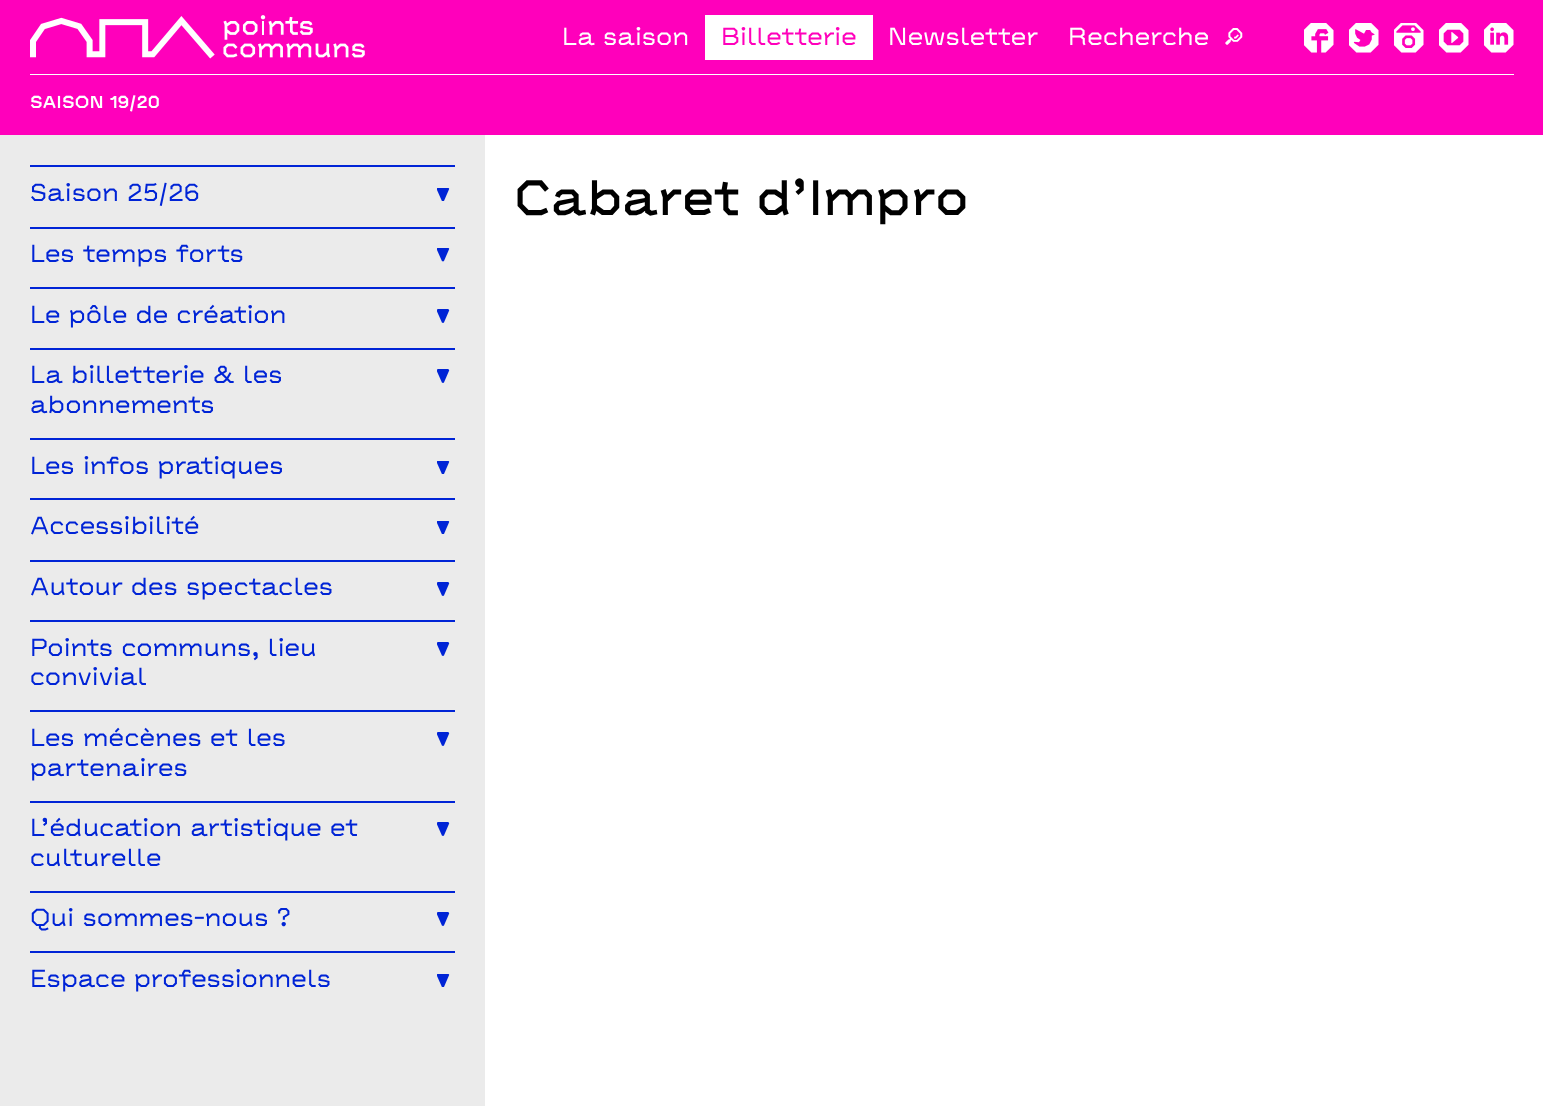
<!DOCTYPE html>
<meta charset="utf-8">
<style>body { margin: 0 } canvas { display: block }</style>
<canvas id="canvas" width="1543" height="1106"></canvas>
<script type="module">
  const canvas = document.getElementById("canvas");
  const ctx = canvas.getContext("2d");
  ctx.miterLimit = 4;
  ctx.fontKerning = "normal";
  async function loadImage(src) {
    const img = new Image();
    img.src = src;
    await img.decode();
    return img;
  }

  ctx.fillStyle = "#ffffff";
  ctx.fillRect(0, 0, 1543, 1106);
  ctx.fillStyle = "#ff00bb";
  ctx.fillRect(0, 0, 1543, 135);
  ctx.fillStyle = "#ffffff";
  ctx.fillRect(30, 74, 1484, 1);
  ctx.drawImage(await loadImage("img1.png"), 30, 15, 335, 44);
  ctx.letterSpacing = "0.4px";
  ctx.font = "25.5px 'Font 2'";
  ctx.fillText("La saison", 562, 45);
  ctx.fillRect(705, 15, 168, 45);
  ctx.fillStyle = "#ff00bb";
  ctx.fillText("Billetterie", 721, 45);
  ctx.fillStyle = "#ffffff";
  ctx.fillText("Newsletter", 888, 45);
  ctx.fillText("Recherche", 1068, 45);
  ctx.fillText("🔎", 1224, 45);
  ctx.drawImage(await loadImage("img2.png"), 1304, 23, 30, 30);
  ctx.drawImage(await loadImage("img3.png"), 1349, 23, 30, 30);
  ctx.drawImage(await loadImage("img4.png"), 1394, 23, 30, 30);
  ctx.drawImage(await loadImage("img5.png"), 1439, 23, 30, 30);
  ctx.drawImage(await loadImage("img6.png"), 1484, 23, 30, 30);
  ctx.letterSpacing = "0.25px";
  ctx.font = "bold 17.75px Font";
  ctx.fillText("SAISON 19/20", 30, 108);
  ctx.fillStyle = "#ebebeb";
  ctx.fillRect(0, 135, 485, 971);
  ctx.fillStyle = "#0024d6";
  ctx.fillRect(30, 165, 425, 2);
  ctx.letterSpacing = "0.4px";
  ctx.font = "25.5px 'Font 2'";
  ctx.fillText("Saison 25/26", 30, 201);
  ctx.drawImage(await loadImage("img7.png"), 437, 188, 13, 13);
  ctx.fillRect(30, 227, 425, 2);
  ctx.fillText("Les temps forts", 30, 262);
  ctx.drawImage(await loadImage("img8.png"), 437, 248, 13, 14);
  ctx.fillRect(30, 287, 425, 2);
  ctx.fillText("Le pôle de création", 30, 323);
  ctx.drawImage(await loadImage("img9.png"), 437, 309, 13, 14);
  ctx.fillRect(30, 348, 425, 2);
  ctx.fillText("La billetterie & les", 30, 383);
  ctx.fillText("abonnements", 30, 413);
  ctx.drawImage(await loadImage("img9.png"), 437, 369, 13, 14);
  ctx.fillRect(30, 438, 425, 2);
  ctx.fillText("Les infos pratiques", 30, 474);
  ctx.drawImage(await loadImage("img7.png"), 437, 461, 13, 13);
  ctx.fillRect(30, 498, 425, 2);
  ctx.fillText("Accessibilité", 30, 534);
  ctx.drawImage(await loadImage("img7.png"), 437, 521, 13, 13);
  ctx.fillRect(30, 560, 425, 2);
  ctx.fillText("Autour des spectacles", 30, 595);
  ctx.drawImage(await loadImage("img9.png"), 437, 582, 13, 14);
  ctx.fillRect(30, 620, 425, 2);
  ctx.fillText("Points communs, lieu", 30, 656);
  ctx.fillText("convivial", 30, 685);
  ctx.drawImage(await loadImage("img9.png"), 437, 642, 13, 14);
  ctx.fillRect(30, 710, 425, 2);
  ctx.fillText("Les mécènes et les", 30, 746);
  ctx.fillText("partenaires", 30, 776);
  ctx.drawImage(await loadImage("img9.png"), 437, 732, 13, 14);
  ctx.fillRect(30, 801, 425, 2);
  ctx.fillText("L’éducation artistique et", 30, 836);
  ctx.fillText("culturelle", 30, 866);
  ctx.drawImage(await loadImage("img9.png"), 437, 822, 13, 14);
  ctx.fillRect(30, 891, 425, 2);
  ctx.fillText("Qui sommes-nous ?", 30, 926);
  ctx.drawImage(await loadImage("img9.png"), 437, 912, 13, 14);
  ctx.fillRect(30, 951, 425, 2);
  ctx.fillText("Espace professionnels", 30, 987);
  ctx.drawImage(await loadImage("img7.png"), 437, 974, 13, 13);
  ctx.letterSpacing = "0.75px";
  ctx.font = "51px Font";
  ctx.fillStyle = "#000000";
  ctx.fillText("Cabaret d’Impro", 514, 215);
</script>
